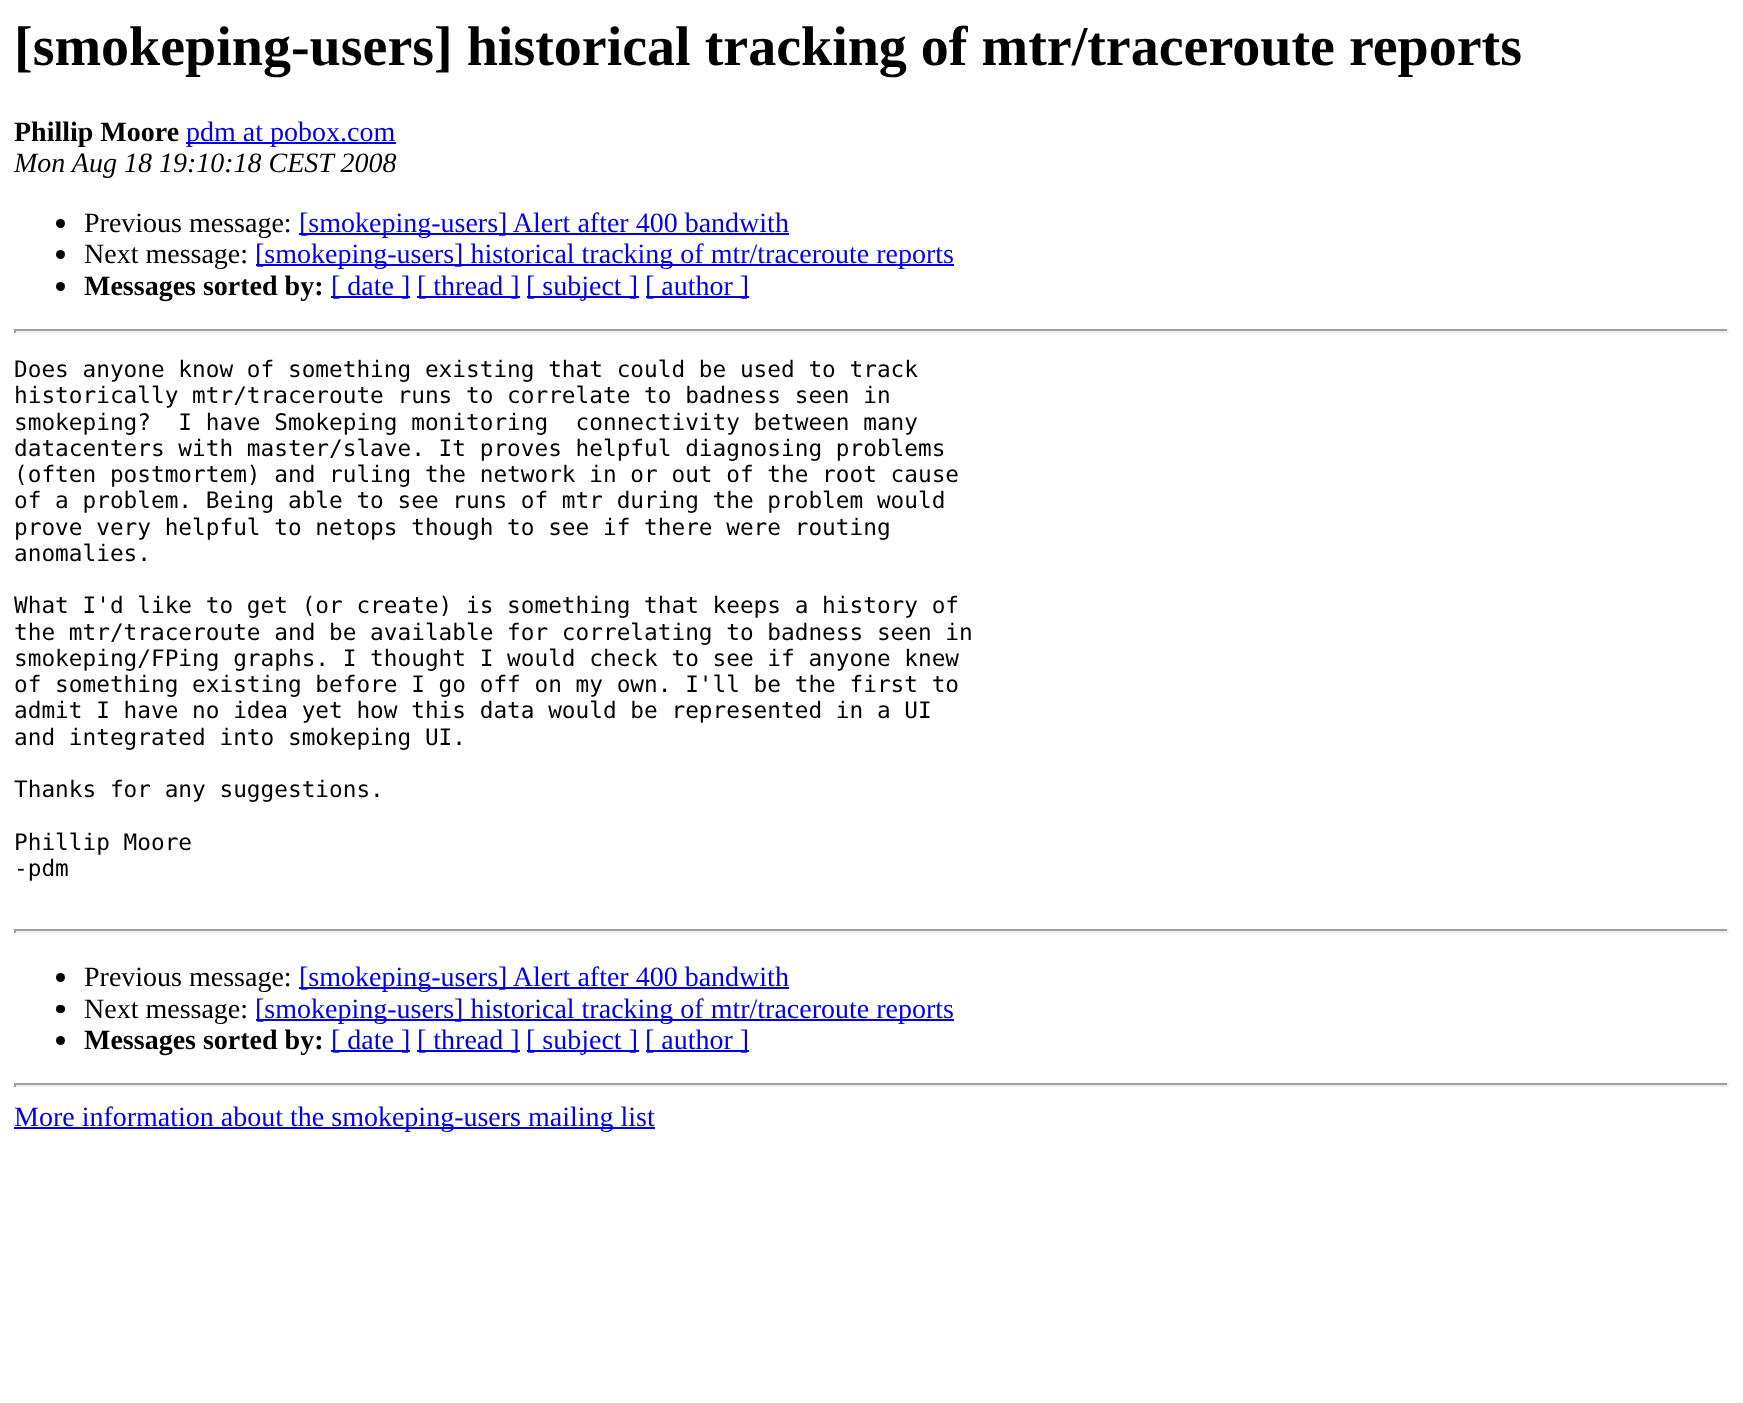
<!DOCTYPE html>
<meta charset="utf-8">
<style>body { margin: 0 } canvas { display: block }</style>
<canvas id="canvas" width="1743" height="1403"></canvas>
<script type="module">
  const canvas = document.getElementById("canvas");
  const ctx = canvas.getContext("2d");
  ctx.miterLimit = 4;
  ctx.fontKerning = "normal";

  ctx.fillStyle = "#ffffff";
  ctx.fillRect(0, 0, 1743, 1403);
  ctx.font = "bold 56px Liberation Serif";
  ctx.fillStyle = "#000000";
  ctx.fillText("[smokeping-users] historical tracking of mtr/traceroute reports", 14, 65);
  ctx.font = "bold 28px Liberation Serif";
  ctx.fillText("Phillip Moore", 14, 141);
  ctx.fillStyle = "#0000ee";
  ctx.fillRect(186, 142, 210, 2);
  ctx.font = "28px Liberation Serif";
  ctx.fillText("pdm at pobox.com", 186, 141);
  ctx.font = "italic 28px Liberation Serif";
  ctx.fillStyle = "#000000";
  ctx.fillText("Mon Aug 18 19:10:18 CEST 2008", 14, 172);
  ctx.beginPath();
  ctx.arc(60.5, 223.5, 4.5, 0, Math.PI * 2);
  ctx.fill();
  ctx.font = "28px Liberation Serif";
  ctx.fillText("Previous message:", 84, 232);
  ctx.fillStyle = "#0000ee";
  ctx.fillRect(299, 233, 490, 2);
  ctx.fillText("[smokeping-users] Alert after 400 bandwith", 299, 232);
  ctx.fillStyle = "#000000";
  ctx.beginPath();
  ctx.arc(60.5, 254.5, 4.5, 0, Math.PI * 2);
  ctx.fill();
  ctx.fillText("Next message:", 84, 263);
  ctx.fillStyle = "#0000ee";
  ctx.fillRect(256, 264, 698, 2);
  ctx.fillText("[smokeping-users] historical tracking of mtr/traceroute reports", 255, 263);
  ctx.fillStyle = "#000000";
  ctx.beginPath();
  ctx.arc(60.5, 286.5, 4.5, 0, Math.PI * 2);
  ctx.fill();
  ctx.font = "bold 28px Liberation Serif";
  ctx.fillText("Messages sorted by:", 84, 295);
  ctx.fillStyle = "#0000ee";
  ctx.fillRect(331, 296, 79, 2);
  ctx.font = "28px Liberation Serif";
  ctx.fillText("[ date ]", 331, 295);
  ctx.fillRect(417, 296, 103, 2);
  ctx.fillText("[ thread ]", 417, 295);
  ctx.fillRect(527, 296, 112, 2);
  ctx.fillText("[ subject ]", 526, 295);
  ctx.fillRect(646, 296, 103, 2);
  ctx.fillText("[ author ]", 645, 295);
  ctx.fillStyle = "#9f9f9f";
  ctx.fillRect(14, 329, 1715, 2);
  ctx.fillStyle = "#eeeeee";
  ctx.fillRect(1727, 329, 2, 4);
  ctx.fillRect(14, 331, 1715, 2);
  ctx.fillStyle = "#9f9f9f";
  ctx.fillRect(14, 329, 2, 4);
  ctx.font = "22.75px DejaVu Sans Mono";
  ctx.fillStyle = "#000000";
  ctx.fillText("Does anyone know of something existing that could be used to track", 14, 377);
  ctx.fillText("historically mtr/traceroute runs to correlate to badness seen in", 14, 403);
  ctx.fillText("smokeping?  I have Smokeping monitoring  connectivity between many", 14, 430);
  ctx.fillText("datacenters with master/slave. It proves helpful diagnosing problems", 14, 456);
  ctx.fillText("(often postmortem) and ruling the network in or out of the root cause", 14, 482);
  ctx.fillText("of a problem. Being able to see runs of mtr during the problem would", 14, 508);
  ctx.fillText("prove very helpful to netops though to see if there were routing", 14, 535);
  ctx.fillText("anomalies.", 14, 561);
  ctx.fillText("What I'd like to get (or create) is something that keeps a history of", 14, 613);
  ctx.fillText("the mtr/traceroute and be available for correlating to badness seen in", 14, 640);
  ctx.fillText("smokeping/FPing graphs. I thought I would check to see if anyone knew", 14, 666);
  ctx.fillText("of something existing before I go off on my own. I'll be the first to", 14, 692);
  ctx.fillText("admit I have no idea yet how this data would be represented in a UI", 14, 718);
  ctx.fillText("and integrated into smokeping UI.", 14, 745);
  ctx.fillText("Thanks for any suggestions.", 14, 797);
  ctx.fillText("Phillip Moore", 14, 850);
  ctx.fillText("-pdm", 14, 876);
  ctx.fillStyle = "#9f9f9f";
  ctx.fillRect(14, 929, 1715, 2);
  ctx.fillStyle = "#eeeeee";
  ctx.fillRect(1727, 929, 2, 4);
  ctx.fillRect(14, 931, 1715, 2);
  ctx.fillStyle = "#9f9f9f";
  ctx.fillRect(14, 929, 2, 4);
  ctx.fillStyle = "#000000";
  ctx.beginPath();
  ctx.arc(60.5, 977.5, 4.5, 0, Math.PI * 2);
  ctx.fill();
  ctx.font = "28px Liberation Serif";
  ctx.fillText("Previous message:", 84, 986);
  ctx.fillStyle = "#0000ee";
  ctx.fillRect(299, 987, 490, 2);
  ctx.fillText("[smokeping-users] Alert after 400 bandwith", 299, 986);
  ctx.fillStyle = "#000000";
  ctx.beginPath();
  ctx.roundRect(56, 1005, 9, 8, 4);
  ctx.fill();
  ctx.fillText("Next message:", 84, 1018);
  ctx.fillStyle = "#0000ee";
  ctx.fillRect(256, 1019, 698, 2);
  ctx.fillText("[smokeping-users] historical tracking of mtr/traceroute reports", 255, 1018);
  ctx.fillStyle = "#000000";
  ctx.beginPath();
  ctx.arc(60.5, 1040.5, 4.5, 0, Math.PI * 2);
  ctx.fill();
  ctx.font = "bold 28px Liberation Serif";
  ctx.fillText("Messages sorted by:", 84, 1049);
  ctx.fillStyle = "#0000ee";
  ctx.fillRect(331, 1050, 79, 2);
  ctx.font = "28px Liberation Serif";
  ctx.fillText("[ date ]", 331, 1049);
  ctx.fillRect(417, 1050, 103, 2);
  ctx.fillText("[ thread ]", 417, 1049);
  ctx.fillRect(527, 1050, 112, 2);
  ctx.fillText("[ subject ]", 526, 1049);
  ctx.fillRect(646, 1050, 103, 2);
  ctx.fillText("[ author ]", 645, 1049);
  ctx.fillStyle = "#9f9f9f";
  ctx.fillRect(14, 1083, 1715, 2);
  ctx.fillStyle = "#eeeeee";
  ctx.fillRect(1727, 1083, 2, 4);
  ctx.fillRect(14, 1085, 1715, 2);
  ctx.fillStyle = "#9f9f9f";
  ctx.fillRect(14, 1083, 2, 4);
  ctx.fillStyle = "#0000ee";
  ctx.fillRect(14, 1127, 641, 2);
  ctx.fillText("More information about the smokeping-users mailing list", 14, 1126);
</script>
